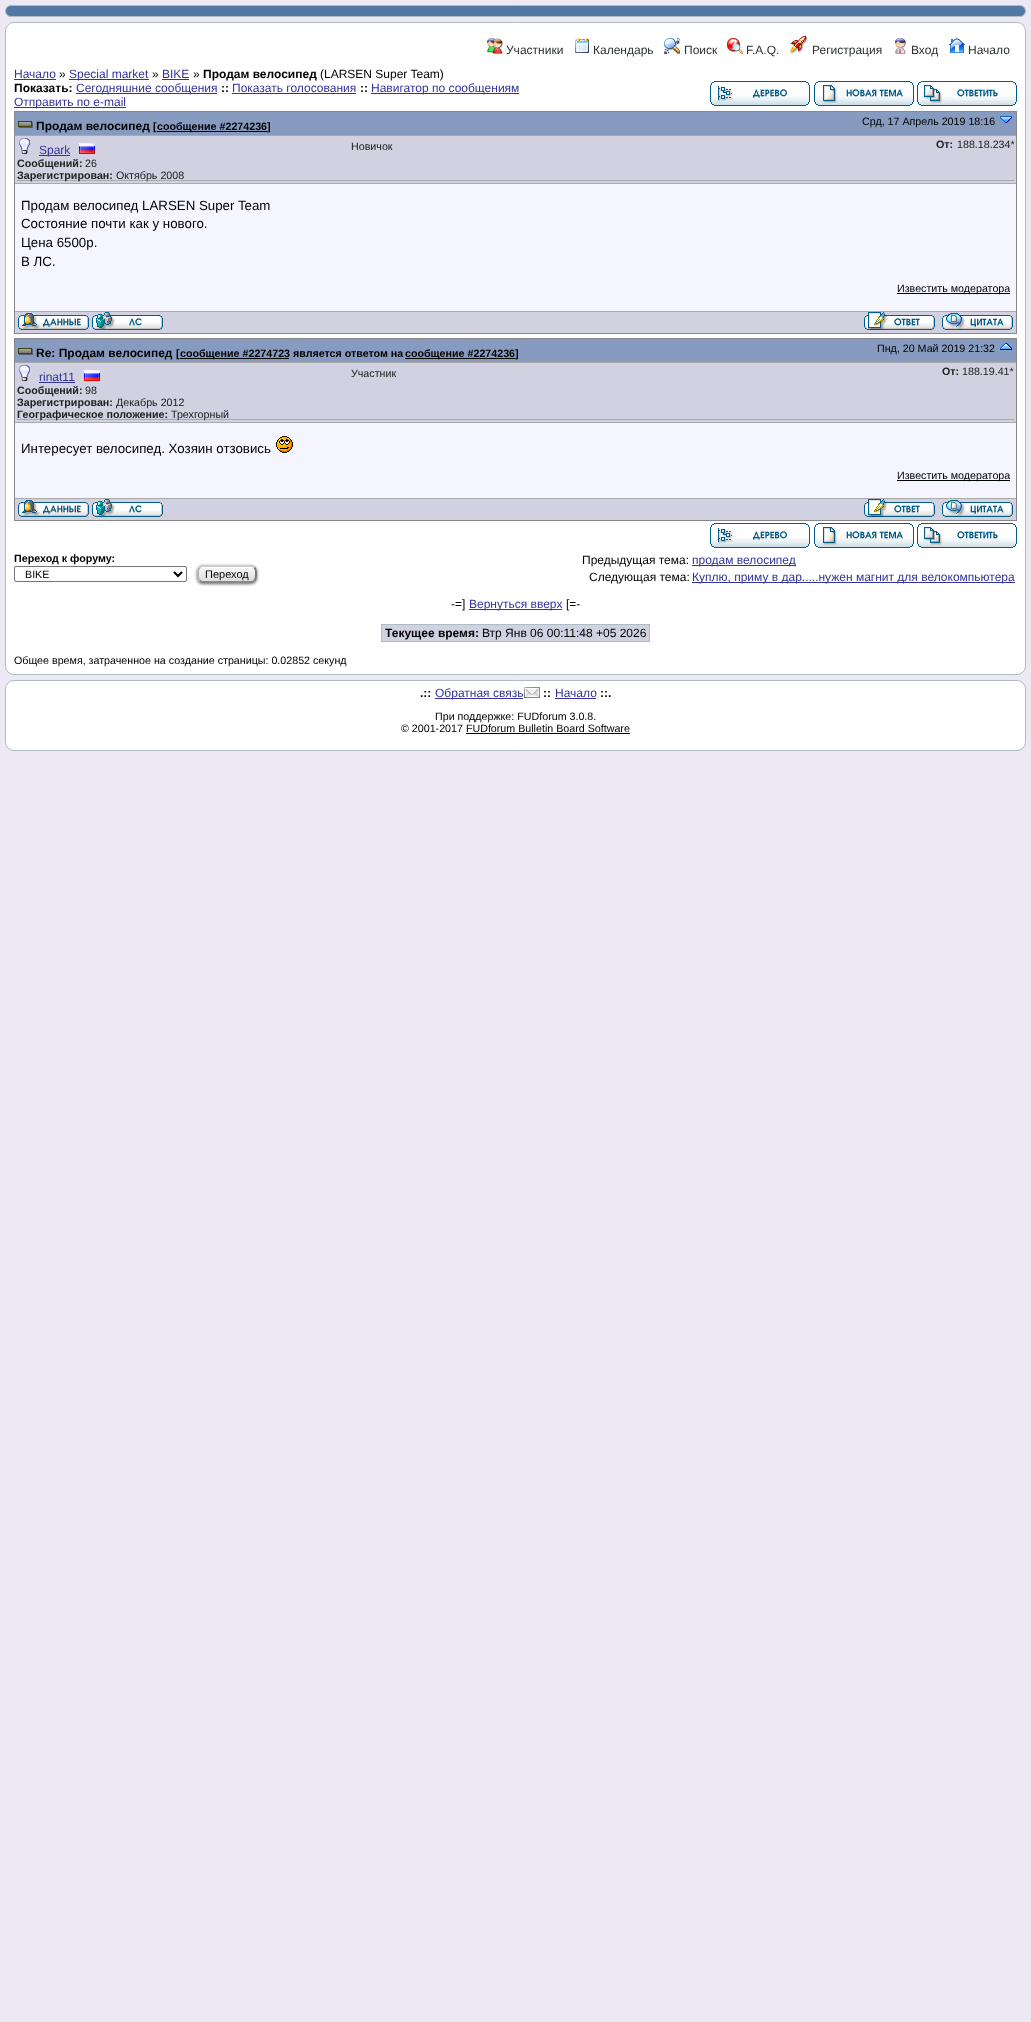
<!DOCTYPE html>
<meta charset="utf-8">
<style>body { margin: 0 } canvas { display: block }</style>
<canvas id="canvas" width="1031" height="2022"></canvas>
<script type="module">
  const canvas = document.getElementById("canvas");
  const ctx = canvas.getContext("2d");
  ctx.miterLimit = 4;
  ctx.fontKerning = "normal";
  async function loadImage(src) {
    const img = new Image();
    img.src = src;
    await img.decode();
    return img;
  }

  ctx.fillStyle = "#ede9f4";
  ctx.fillRect(0, 0, 1031, 2022);
  ctx.fillStyle = "#5478a4";
  ctx.beginPath();
  ctx.roundRect(5.5, 5.5, 1020, 11, 5.5);
  ctx.fill();
  ctx.strokeStyle = "#aebdc4";
  ctx.stroke();
  ctx.fillStyle = "#ffffff";
  ctx.beginPath();
  ctx.roundRect(5.5, 22.5, 1020, 652, 8.5);
  ctx.fill();
  ctx.stroke();
  ctx.drawImage(await loadImage("img1.png"), 487, 38, 16, 16);
  ctx.font = "12px Liberation Sans";
  ctx.fillStyle = "#2b332b";
  ctx.fillText("Участники", 506, 54);
  ctx.drawImage(await loadImage("img2.png"), 575, 38, 14, 15);
  ctx.fillText("Календарь", 593, 54);
  ctx.drawImage(await loadImage("img3.png"), 664, 38, 16, 16);
  ctx.fillText("Поиск", 684, 54);
  ctx.drawImage(await loadImage("img4.png"), 727, 38, 16, 16);
  ctx.fillText("F.A.Q.", 746, 54);
  ctx.drawImage(await loadImage("img5.png"), 790, 36, 18, 18);
  ctx.fillText("Регистрация", 812, 54);
  ctx.drawImage(await loadImage("img6.png"), 895, 38, 12, 16);
  ctx.fillText("Вход", 911, 54);
  ctx.drawImage(await loadImage("img7.png"), 949, 38, 16, 15);
  ctx.fillText("Начало", 968, 54);
  ctx.fillStyle = "#333399";
  ctx.fillText("Начало", 14, 78);
  ctx.fillRect(14, 79, 42, 1);
  ctx.fillStyle = "#000000";
  ctx.fillText("»", 59, 78);
  ctx.fillStyle = "#333399";
  ctx.fillRect(69, 79, 80, 1);
  ctx.fillText("Special market", 69, 78);
  ctx.fillStyle = "#000000";
  ctx.fillText("»", 152, 78);
  ctx.fillStyle = "#333399";
  ctx.fillText("BIKE", 162, 78);
  ctx.fillRect(162, 79, 27, 1);
  ctx.fillStyle = "#000000";
  ctx.fillText("»", 193, 78);
  ctx.font = "bold 12px Liberation Sans";
  ctx.fillText("Продам велосипед", 203, 78);
  ctx.font = "12px Liberation Sans";
  ctx.fillText("(LARSEN Super Team)", 320, 78);
  ctx.font = "bold 12px Liberation Sans";
  ctx.fillText("Показать:", 14, 92);
  ctx.fillStyle = "#333399";
  ctx.fillRect(76, 93, 141, 1);
  ctx.font = "12px Liberation Sans";
  ctx.fillText("Сегодняшние сообщения", 76, 92);
  ctx.font = "bold 12px Liberation Sans";
  ctx.fillStyle = "#000000";
  ctx.fillText("::", 221, 92);
  ctx.font = "12px Liberation Sans";
  ctx.fillStyle = "#333399";
  ctx.fillText("Показать голосования", 232, 92);
  ctx.fillRect(232, 93, 124, 1);
  ctx.font = "bold 12px Liberation Sans";
  ctx.fillStyle = "#000000";
  ctx.fillText("::", 360, 92);
  ctx.fillStyle = "#333399";
  ctx.fillRect(371, 93, 148, 1);
  ctx.font = "12px Liberation Sans";
  ctx.fillText("Навигатор по сообщениям", 371, 92);
  ctx.fillRect(14, 107, 112, 1);
  ctx.fillText("Отправить по e-mail", 14, 106);
  ctx.drawImage(await loadImage("img8.png"), 710, 81, 100, 25);
  ctx.drawImage(await loadImage("img9.png"), 814, 81, 100, 25);
  ctx.drawImage(await loadImage("img10.png"), 917, 81, 100, 25);
  ctx.strokeStyle = "#888888";
  ctx.strokeRect(14.5, 111.5, 1002, 222);
  ctx.fillStyle = "#869bbf";
  ctx.fillRect(15, 112, 1001, 23);
  ctx.fillStyle = "#aaaaaa";
  ctx.fillRect(15, 135, 1001, 1);
  ctx.drawImage(await loadImage("img11.png"), 18, 121, 15, 7);
  ctx.font = "bold 12px Liberation Sans";
  ctx.fillStyle = "#000000";
  ctx.fillText("Продам велосипед", 36, 130);
  ctx.font = "bold 10.7px Liberation Sans";
  ctx.fillText("[", 153, 130);
  ctx.fillRect(157, 131, 110, 1);
  ctx.fillText("сообщение #2274236]", 157, 130);
  ctx.font = "10.7px Liberation Sans";
  ctx.fillText("Срд, 17 Апрель 2019 18:16", 862, 125);
  ctx.drawImage(await loadImage("img12.png"), 1000, 116, 12, 7);
  ctx.fillStyle = "#d1d1e1";
  ctx.fillRect(15, 136, 1001, 47);
  ctx.fillStyle = "#aaaaaa";
  ctx.fillRect(15, 183, 1001, 1);
  ctx.fillRect(17, 180, 997, 1);
  ctx.drawImage(await loadImage("img13.png"), 19, 138, 11, 16);
  ctx.fillStyle = "#333399";
  ctx.fillRect(39, 155, 31, 1);
  ctx.font = "12px Liberation Sans";
  ctx.fillText("Spark", 39, 154);
  ctx.drawImage(await loadImage("img14.png"), 79, 143, 16, 11);
  ctx.font = "bold 10.7px Liberation Sans";
  ctx.fillStyle = "#202020";
  ctx.fillText("Сообщений:", 17, 167);
  ctx.font = "10.7px Liberation Sans";
  ctx.fillText("26", 85, 167);
  ctx.font = "bold 10.7px Liberation Sans";
  ctx.fillText("Зарегистрирован:", 17, 179);
  ctx.font = "10.7px Liberation Sans";
  ctx.fillText("Октябрь 2008", 116, 179);
  ctx.fillText("Новичок", 351, 150);
  ctx.font = "bold 10.7px Liberation Sans";
  ctx.fillText("От:", 936, 148);
  ctx.font = "10.7px Liberation Sans";
  ctx.fillText("188.18.234*", 957, 148);
  ctx.fillStyle = "#f5f5ff";
  ctx.fillRect(15, 184, 1001, 127);
  ctx.fillStyle = "#aaaaaa";
  ctx.fillRect(15, 311, 1001, 1);
  ctx.font = "13.3px Liberation Sans";
  ctx.fillStyle = "#000000";
  ctx.fillText("Продам велосипед LARSEN Super Team", 21, 210);
  ctx.fillText("Состояние почти как у нового.", 21, 228);
  ctx.fillText("Цена 6500р.", 21, 247);
  ctx.fillText("В ЛС.", 21, 266);
  ctx.fillRect(897, 293, 113, 1);
  ctx.font = "10.7px Liberation Sans";
  ctx.fillText("Известить модератора", 897, 292);
  ctx.fillStyle = "#d1d1e1";
  ctx.fillRect(15, 312, 1001, 21);
  ctx.drawImage(await loadImage("img15.png"), 18, 313, 71, 17);
  ctx.drawImage(await loadImage("img16.png"), 92, 312, 71, 18);
  ctx.drawImage(await loadImage("img17.png"), 864, 312, 71, 18);
  ctx.drawImage(await loadImage("img18.png"), 942, 313, 71, 17);
  ctx.strokeRect(14.5, 338.5, 1002, 182);
  ctx.fillStyle = "#869bbf";
  ctx.fillRect(15, 339, 1001, 23);
  ctx.fillStyle = "#aaaaaa";
  ctx.fillRect(15, 362, 1001, 1);
  ctx.drawImage(await loadImage("img11.png"), 18, 348, 15, 7);
  ctx.font = "bold 12px Liberation Sans";
  ctx.fillStyle = "#000000";
  ctx.fillText("Re: Продам велосипед", 36, 357);
  ctx.font = "bold 10.7px Liberation Sans";
  ctx.fillText("[", 176, 357);
  ctx.fillRect(180, 358, 109, 1);
  ctx.fillText("сообщение #2274723 является ответом на", 180, 357);
  ctx.fillRect(405, 358, 110, 1);
  ctx.fillText("сообщение #2274236]", 405, 357);
  ctx.font = "10.7px Liberation Sans";
  ctx.fillText("Пнд, 20 Май 2019 21:32", 877, 352);
  ctx.drawImage(await loadImage("img19.png"), 1000, 343, 12, 7);
  ctx.fillStyle = "#d1d1e1";
  ctx.fillRect(15, 363, 1001, 59);
  ctx.fillStyle = "#aaaaaa";
  ctx.fillRect(15, 422, 1001, 1);
  ctx.fillRect(17, 419, 997, 1);
  ctx.drawImage(await loadImage("img13.png"), 19, 365, 11, 16);
  ctx.font = "12px Liberation Sans";
  ctx.fillStyle = "#333399";
  ctx.fillText("rinat11", 39, 381);
  ctx.fillRect(39, 382, 36, 1);
  ctx.drawImage(await loadImage("img14.png"), 84, 370, 16, 11);
  ctx.font = "bold 10.7px Liberation Sans";
  ctx.fillStyle = "#202020";
  ctx.fillText("Сообщений:", 17, 394);
  ctx.font = "10.7px Liberation Sans";
  ctx.fillText("98", 85, 394);
  ctx.font = "bold 10.7px Liberation Sans";
  ctx.fillText("Зарегистрирован:", 17, 406);
  ctx.font = "10.7px Liberation Sans";
  ctx.fillText("Декабрь 2012", 116, 406);
  ctx.font = "bold 10.7px Liberation Sans";
  ctx.fillText("Географическое положение:", 17, 418);
  ctx.font = "10.7px Liberation Sans";
  ctx.fillText("Трехгорный", 171, 418);
  ctx.fillText("Участник", 351, 377);
  ctx.font = "bold 10.7px Liberation Sans";
  ctx.fillText("От:", 942, 375);
  ctx.font = "10.7px Liberation Sans";
  ctx.fillText("188.19.41*", 962, 375);
  ctx.fillStyle = "#f5f5ff";
  ctx.fillRect(15, 423, 1001, 75);
  ctx.fillStyle = "#aaaaaa";
  ctx.fillRect(15, 498, 1001, 1);
  ctx.font = "13.3px Liberation Sans";
  ctx.fillStyle = "#000000";
  ctx.fillText("Интересует велосипед. Хозяин отзовись", 21, 453);
  ctx.drawImage(await loadImage("img20.png"), 276, 436, 17, 17);
  ctx.fillRect(897, 480, 113, 1);
  ctx.font = "10.7px Liberation Sans";
  ctx.fillText("Известить модератора", 897, 479);
  ctx.fillStyle = "#d1d1e1";
  ctx.fillRect(15, 499, 1001, 21);
  ctx.drawImage(await loadImage("img15.png"), 18, 500, 71, 17);
  ctx.drawImage(await loadImage("img16.png"), 92, 499, 71, 18);
  ctx.drawImage(await loadImage("img17.png"), 864, 499, 71, 18);
  ctx.drawImage(await loadImage("img18.png"), 942, 500, 71, 17);
  ctx.drawImage(await loadImage("img8.png"), 710, 523, 100, 25);
  ctx.drawImage(await loadImage("img9.png"), 814, 523, 100, 25);
  ctx.drawImage(await loadImage("img10.png"), 917, 523, 100, 25);
  ctx.font = "bold 10.7px Liberation Sans";
  ctx.fillStyle = "#000000";
  ctx.fillText("Переход к форуму:", 14, 562);
  ctx.font = "12px Liberation Sans";
  ctx.fillText("Предыдущая тема:", 582, 564);
  ctx.fillStyle = "#333399";
  ctx.fillRect(692, 565, 104, 1);
  ctx.fillText("продам велосипед", 692, 564);
  ctx.fillStyle = "#000000";
  ctx.fillText("Следующая тема:", 589, 581);
  ctx.fillStyle = "#333399";
  ctx.fillRect(692, 582, 323, 1);
  ctx.fillText("Куплю, приму в дар.....нужен магнит для велокомпьютера", 692, 581);
  ctx.beginPath();
  ctx.roundRect(14.5, 566.5, 172, 15, 1.5);
  ctx.strokeStyle = "#767676";
  ctx.stroke();
  ctx.beginPath();
  ctx.moveTo(174, 572);
  ctx.lineTo(178, 576);
  ctx.lineTo(182, 572);
  ctx.strokeStyle = "#000000";
  ctx.lineWidth = 2;
  ctx.stroke();
  ctx.font = "10.7px Liberation Sans";
  ctx.fillStyle = "#000000";
  ctx.fillText("BIKE", 25, 578);
  ctx.fillStyle = "rgba(0, 0, 0, 0.6)";
  ctx.filter = "blur(1.5px)";
  ctx.beginPath();
  ctx.roundRect(197, 566, 60, 18, 6);
  ctx.fill();
  ctx.filter = "none";
  ctx.drawImage(await loadImage("img21.png"), 197, 567, 60, 15);
  ctx.beginPath();
  ctx.moveTo(199.5, 567.5);
  ctx.bezierCurveTo(200.5, 566.5, 201.5, 566, 203, 566);
  ctx.lineTo(251, 566);
  ctx.bezierCurveTo(252.5, 566, 253.5, 566.5, 254.5, 567.5);
  ctx.strokeStyle = "#cccccc";
  ctx.stroke();
  ctx.beginPath();
  ctx.moveTo(254.5, 567.5);
  ctx.bezierCurveTo(256.5, 569.5, 256, 571.5, 256, 574);
  ctx.bezierCurveTo(256, 576.5, 256.5, 578.5, 254.5, 580.5);
  ctx.strokeStyle = "#787778";
  ctx.stroke();
  ctx.beginPath();
  ctx.moveTo(254.5, 580.5);
  ctx.bezierCurveTo(253.5, 581.5, 252.5, 582, 251, 582);
  ctx.lineTo(203, 582);
  ctx.bezierCurveTo(201.5, 582, 200.5, 581.5, 199.5, 580.5);
  ctx.strokeStyle = "#888888";
  ctx.stroke();
  ctx.beginPath();
  ctx.moveTo(199.5, 580.5);
  ctx.bezierCurveTo(197.5, 578.5, 198, 576.5, 198, 574);
  ctx.bezierCurveTo(198, 571.5, 197.5, 569.5, 199.5, 567.5);
  ctx.strokeStyle = "#b4b2b4";
  ctx.stroke();
  ctx.font = "11px Liberation Sans";
  ctx.fillStyle = "#000000";
  ctx.fillText("Переход", 205, 578);
  ctx.font = "12px Liberation Sans";
  ctx.fillText("-=]", 451, 608);
  ctx.fillStyle = "#333399";
  ctx.fillRect(469, 609, 93, 1);
  ctx.fillText("Вернуться вверх", 469, 608);
  ctx.fillStyle = "#000000";
  ctx.fillText("[=-", 566, 608);
  ctx.fillStyle = "#d1d1e1";
  ctx.fillRect(382, 625, 267, 16);
  ctx.font = "bold 12px Liberation Sans";
  ctx.fillStyle = "#000000";
  ctx.fillText("Текущее время:", 385, 637);
  ctx.fillStyle = "#aebdc4";
  ctx.fillRect(381, 624, 269, 1);
  ctx.fillRect(381, 641, 98, 1);
  ctx.fillRect(381, 624, 1, 18);
  ctx.font = "12px Liberation Sans";
  ctx.fillStyle = "#000000";
  ctx.fillText("Втр Янв 06 00:11:48 +05 2026", 482, 637);
  ctx.fillStyle = "#aebdc4";
  ctx.fillRect(649, 624, 1, 18);
  ctx.fillRect(479, 641, 171, 1);
  ctx.font = "10.7px Liberation Sans";
  ctx.fillStyle = "#000000";
  ctx.fillText("Общее время, затраченное на создание страницы: 0.02852 секунд", 14, 664);
  ctx.fillStyle = "#ffffff";
  ctx.beginPath();
  ctx.roundRect(5.5, 680.5, 1020, 70, 8.5);
  ctx.fill();
  ctx.strokeStyle = "#aebdc4";
  ctx.lineWidth = 1;
  ctx.stroke();
  ctx.font = "bold 12px Liberation Sans";
  ctx.fillStyle = "#000000";
  ctx.fillText(".::", 420, 697);
  ctx.fillStyle = "#333399";
  ctx.fillRect(435, 698, 88, 1);
  ctx.font = "12px Liberation Sans";
  ctx.fillText("Обратная связь", 435, 697);
  ctx.drawImage(await loadImage("img22.png"), 524, 687, 16, 11);
  ctx.font = "bold 12px Liberation Sans";
  ctx.fillStyle = "#000000";
  ctx.fillText("::", 543, 697);
  ctx.font = "12px Liberation Sans";
  ctx.fillStyle = "#333399";
  ctx.fillText("Начало", 555, 697);
  ctx.fillRect(555, 698, 41, 1);
  ctx.font = "bold 12px Liberation Sans";
  ctx.fillStyle = "#000000";
  ctx.fillText("::.", 600, 697);
  ctx.font = "10.7px Liberation Sans";
  ctx.fillText("При поддержке: FUDforum 3.0.8.", 435, 720);
  ctx.fillText("© 2001-2017 FUDforum Bulletin Board Software", 401, 732);
  ctx.fillRect(466, 733, 164, 1);
</script>
